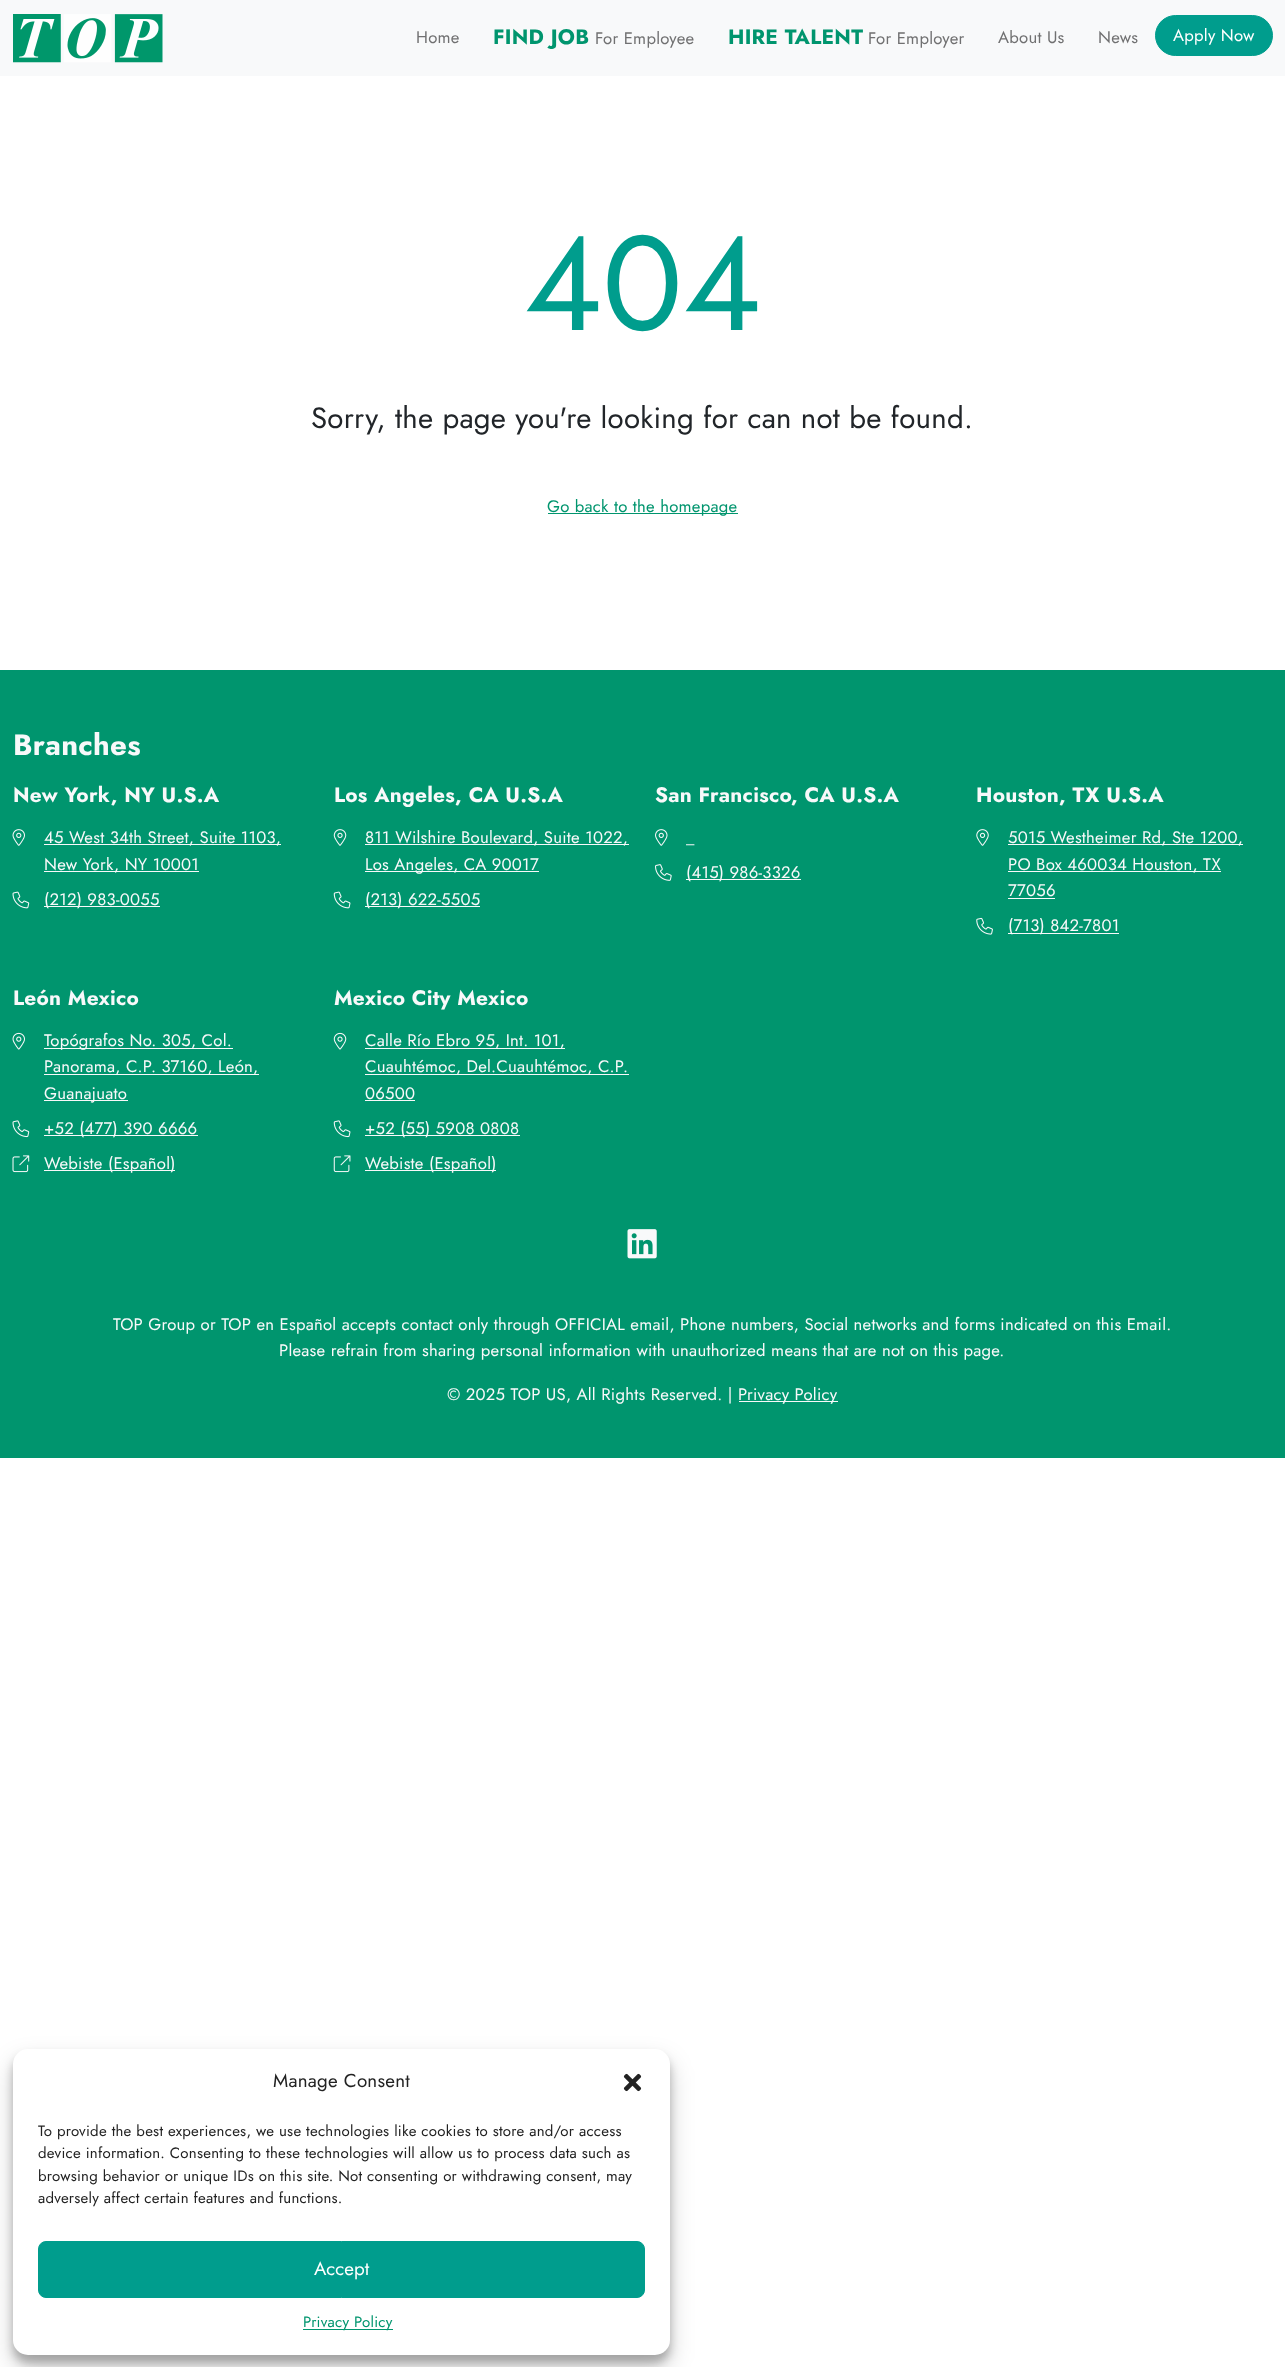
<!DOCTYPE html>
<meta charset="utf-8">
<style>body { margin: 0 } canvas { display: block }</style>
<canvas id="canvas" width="1285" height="2367"></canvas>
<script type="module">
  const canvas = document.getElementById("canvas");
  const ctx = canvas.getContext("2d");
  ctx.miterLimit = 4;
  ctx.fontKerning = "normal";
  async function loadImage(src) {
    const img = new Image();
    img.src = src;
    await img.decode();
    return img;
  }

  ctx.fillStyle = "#ffffff";
  ctx.fillRect(0, 0, 1285, 2367);
  ctx.fillStyle = "#f8f9fa";
  ctx.fillRect(0, 0, 1285, 76);
  ctx.drawImage(await loadImage("img1.png"), 13, 14, 150, 49);
  ctx.letterSpacing = "0.25px";
  ctx.font = "16.7px Jost";
  ctx.fillStyle = "#707071";
  ctx.fillText("Home", 416, 43);
  ctx.font = "bold 20.9px Jost";
  ctx.fillStyle = "#00956e";
  ctx.fillText("FIND JOB", 493, 44);
  ctx.font = "16.7px Jost";
  ctx.fillStyle = "#707071";
  ctx.fillText("For Employee", 595, 44);
  ctx.font = "bold 20.9px Jost";
  ctx.fillStyle = "#00956e";
  ctx.fillText("HIRE TALENT", 728, 44);
  ctx.font = "16.7px Jost";
  ctx.fillStyle = "#707071";
  ctx.fillText("For Employer", 868, 44);
  ctx.fillText("About Us", 998, 43);
  ctx.fillText("News", 1098, 43);
  ctx.fillStyle = "#009d8d";
  ctx.beginPath();
  ctx.roundRect(1155.5, 15.5, 117, 40, 20);
  ctx.fill();
  ctx.strokeStyle = "#009d8d";
  ctx.stroke();
  ctx.fillStyle = "#ffffff";
  ctx.fillText("Apply Now", 1173, 41);
  ctx.font = "134px Jost";
  ctx.fillStyle = "#009d8d";
  ctx.fillText("404", 524, 330);
  ctx.font = "29.4px Jost";
  ctx.fillStyle = "#212529";
  ctx.fillText("Sorry, the page you're looking for can not be found.", 311, 428);
  ctx.fillStyle = "#00956e";
  ctx.fillRect(548, 513, 190, 1);
  ctx.font = "16.7px Jost";
  ctx.fillText("Go back to the homepage", 547, 512);
  ctx.fillRect(0, 670, 1285, 788);
  ctx.font = "bold 29.4px Jost";
  ctx.fillStyle = "#f8f9fa";
  ctx.fillText("Branches", 13, 755);
  ctx.font = "bold 20.9px Jost";
  ctx.fillText("New York, NY U.S.A", 13, 802);
  ctx.drawImage(await loadImage("img2.png"), 12, 829, 13, 17);
  ctx.fillRect(44, 844, 237, 1);
  ctx.font = "16.7px Jost";
  ctx.fillText("45 West 34th Street, Suite 1103,", 44, 843);
  ctx.fillRect(44, 871, 155, 1);
  ctx.fillText("New York, NY 10001", 44, 870);
  ctx.drawImage(await loadImage("img3.png"), 12, 891, 18, 18);
  ctx.fillRect(44, 906, 116, 1);
  ctx.fillText("(212) 983-0055", 44, 905);
  ctx.font = "bold 20.9px Jost";
  ctx.fillText("Los Angeles, CA U.S.A", 334, 802);
  ctx.drawImage(await loadImage("img4.png"), 333, 829, 14, 17);
  ctx.fillRect(365, 844, 264, 1);
  ctx.font = "16.7px Jost";
  ctx.fillText("811 Wilshire Boulevard, Suite 1022,", 365, 843);
  ctx.fillRect(365, 871, 174, 1);
  ctx.fillText("Los Angeles, CA 90017", 365, 870);
  ctx.drawImage(await loadImage("img5.png"), 333, 891, 18, 18);
  ctx.fillRect(365, 906, 115, 1);
  ctx.fillText("(213) 622-5505", 365, 905);
  ctx.font = "bold 20.9px Jost";
  ctx.fillText("San Francisco, CA U.S.A", 655, 802);
  ctx.drawImage(await loadImage("img6.png"), 655, 829, 13, 17);
  ctx.font = "16.7px Jost";
  ctx.fillText("_", 686, 843);
  ctx.drawImage(await loadImage("img7.png"), 655, 864, 17, 17);
  ctx.fillRect(686, 879, 115, 1);
  ctx.fillText("(415) 986-3326", 686, 878);
  ctx.font = "bold 20.9px Jost";
  ctx.fillText("Houston, TX U.S.A", 976, 802);
  ctx.drawImage(await loadImage("img8.png"), 976, 829, 13, 17);
  ctx.fillRect(1008, 844, 235, 1);
  ctx.font = "16.7px Jost";
  ctx.fillText("5015 Westheimer Rd, Ste 1200,", 1008, 843);
  ctx.fillRect(1008, 871, 213, 1);
  ctx.fillText("PO Box 460034 Houston, TX", 1008, 870);
  ctx.fillText("77056", 1008, 896);
  ctx.fillRect(1008, 898, 47, 1);
  ctx.drawImage(await loadImage("img9.png"), 976, 917, 17, 18);
  ctx.fillRect(1008, 933, 111, 1);
  ctx.fillText("(713) 842-7801", 1008, 931);
  ctx.font = "bold 20.9px Jost";
  ctx.fillText("León Mexico", 13, 1005);
  ctx.drawImage(await loadImage("img10.png"), 12, 1032, 13, 18);
  ctx.fillRect(44, 1048, 189, 1);
  ctx.font = "16.7px Jost";
  ctx.fillText("Topógrafos No. 305, Col.", 44, 1046);
  ctx.fillRect(44, 1074, 215, 1);
  ctx.fillText("Panorama, C.P. 37160, León,", 44, 1072);
  ctx.fillRect(44, 1100, 84, 1);
  ctx.fillText("Guanajuato", 44, 1099);
  ctx.drawImage(await loadImage("img11.png"), 12, 1120, 18, 18);
  ctx.fillRect(44, 1135, 154, 1);
  ctx.fillText("+52 (477) 390 6666", 44, 1134);
  ctx.drawImage(await loadImage("img12.png"), 12, 1155, 18, 18);
  ctx.fillRect(44, 1170, 131, 1);
  ctx.fillText("Webiste (Español)", 44, 1169);
  ctx.font = "bold 20.9px Jost";
  ctx.fillText("Mexico City Mexico", 334, 1005);
  ctx.drawImage(await loadImage("img13.png"), 333, 1032, 14, 18);
  ctx.fillRect(365, 1048, 200, 1);
  ctx.font = "16.7px Jost";
  ctx.fillText("Calle Río Ebro 95, Int. 101,", 365, 1046);
  ctx.fillRect(365, 1074, 264, 1);
  ctx.fillText("Cuauhtémoc, Del.Cuauhtémoc, C.P.", 365, 1072);
  ctx.fillText("06500", 365, 1099);
  ctx.fillRect(365, 1100, 50, 1);
  ctx.drawImage(await loadImage("img14.png"), 333, 1120, 18, 18);
  ctx.fillRect(365, 1135, 155, 1);
  ctx.fillText("+52 (55) 5908 0808", 365, 1134);
  ctx.drawImage(await loadImage("img15.png"), 333, 1155, 18, 18);
  ctx.fillRect(365, 1170, 131, 1);
  ctx.fillText("Webiste (Español)", 365, 1169);
  ctx.drawImage(await loadImage("img16.png"), 627, 1229, 30, 30);
  ctx.fillText("TOP Group or TOP en Español accepts contact only through OFFICIAL email, Phone numbers, Social networks and forms indicated on this Email.", 113, 1330);
  ctx.fillText("Please refrain from sharing personal information with unauthorized means that are not on this page.", 279, 1356);
  ctx.fillText("© 2025 TOP US, All Rights Reserved. |", 447, 1400);
  ctx.fillRect(739, 1401, 99, 1);
  ctx.fillText("Privacy Policy", 738, 1400);
  ctx.fillStyle = "rgba(0, 0, 0, 0.23)";
  ctx.filter = "blur(4px)";
  ctx.beginPath();
  ctx.roundRect(13, 2056, 657, 307, 15);
  ctx.fill();
  ctx.filter = "none";
  ctx.fillStyle = "rgba(0, 0, 0, 0.19)";
  ctx.filter = "blur(12.5px)";
  ctx.beginPath();
  ctx.roundRect(13, 2061, 657, 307, 15);
  ctx.fill();
  ctx.filter = "none";
  ctx.fillStyle = "#ffffff";
  ctx.beginPath();
  ctx.roundRect(13, 2049, 657, 306, 15);
  ctx.fill();
  ctx.font = "18.75px Jost";
  ctx.fillStyle = "#222222";
  ctx.fillText("Manage Consent", 273, 2087);
  ctx.drawImage(await loadImage("img17.png"), 623, 2073, 19, 19);
  ctx.font = "15px Jost";
  ctx.fillText("To provide the best experiences, we use technologies like cookies to store and/or access", 38, 2136);
  ctx.fillText("device information. Consenting to these technologies will allow us to process data such as", 38, 2158);
  ctx.fillText("browsing behavior or unique IDs on this site. Not consenting or withdrawing consent, may", 38, 2181);
  ctx.fillText("adversely affect certain features and functions.", 38, 2203);
  ctx.fillStyle = "#009d8d";
  ctx.beginPath();
  ctx.roundRect(38.5, 2241.5, 606, 56, 7.5);
  ctx.fill();
  ctx.stroke();
  ctx.letterSpacing = "0px";
  ctx.font = "18.75px Jost";
  ctx.fillStyle = "#ffffff";
  ctx.fillText("Accept", 314, 2275);
  ctx.fillStyle = "#00956e";
  ctx.fillRect(303, 2329, 90, 1);
  ctx.letterSpacing = "0.25px";
  ctx.font = "15px Jost";
  ctx.fillText("Privacy Policy", 303, 2327);
</script>
